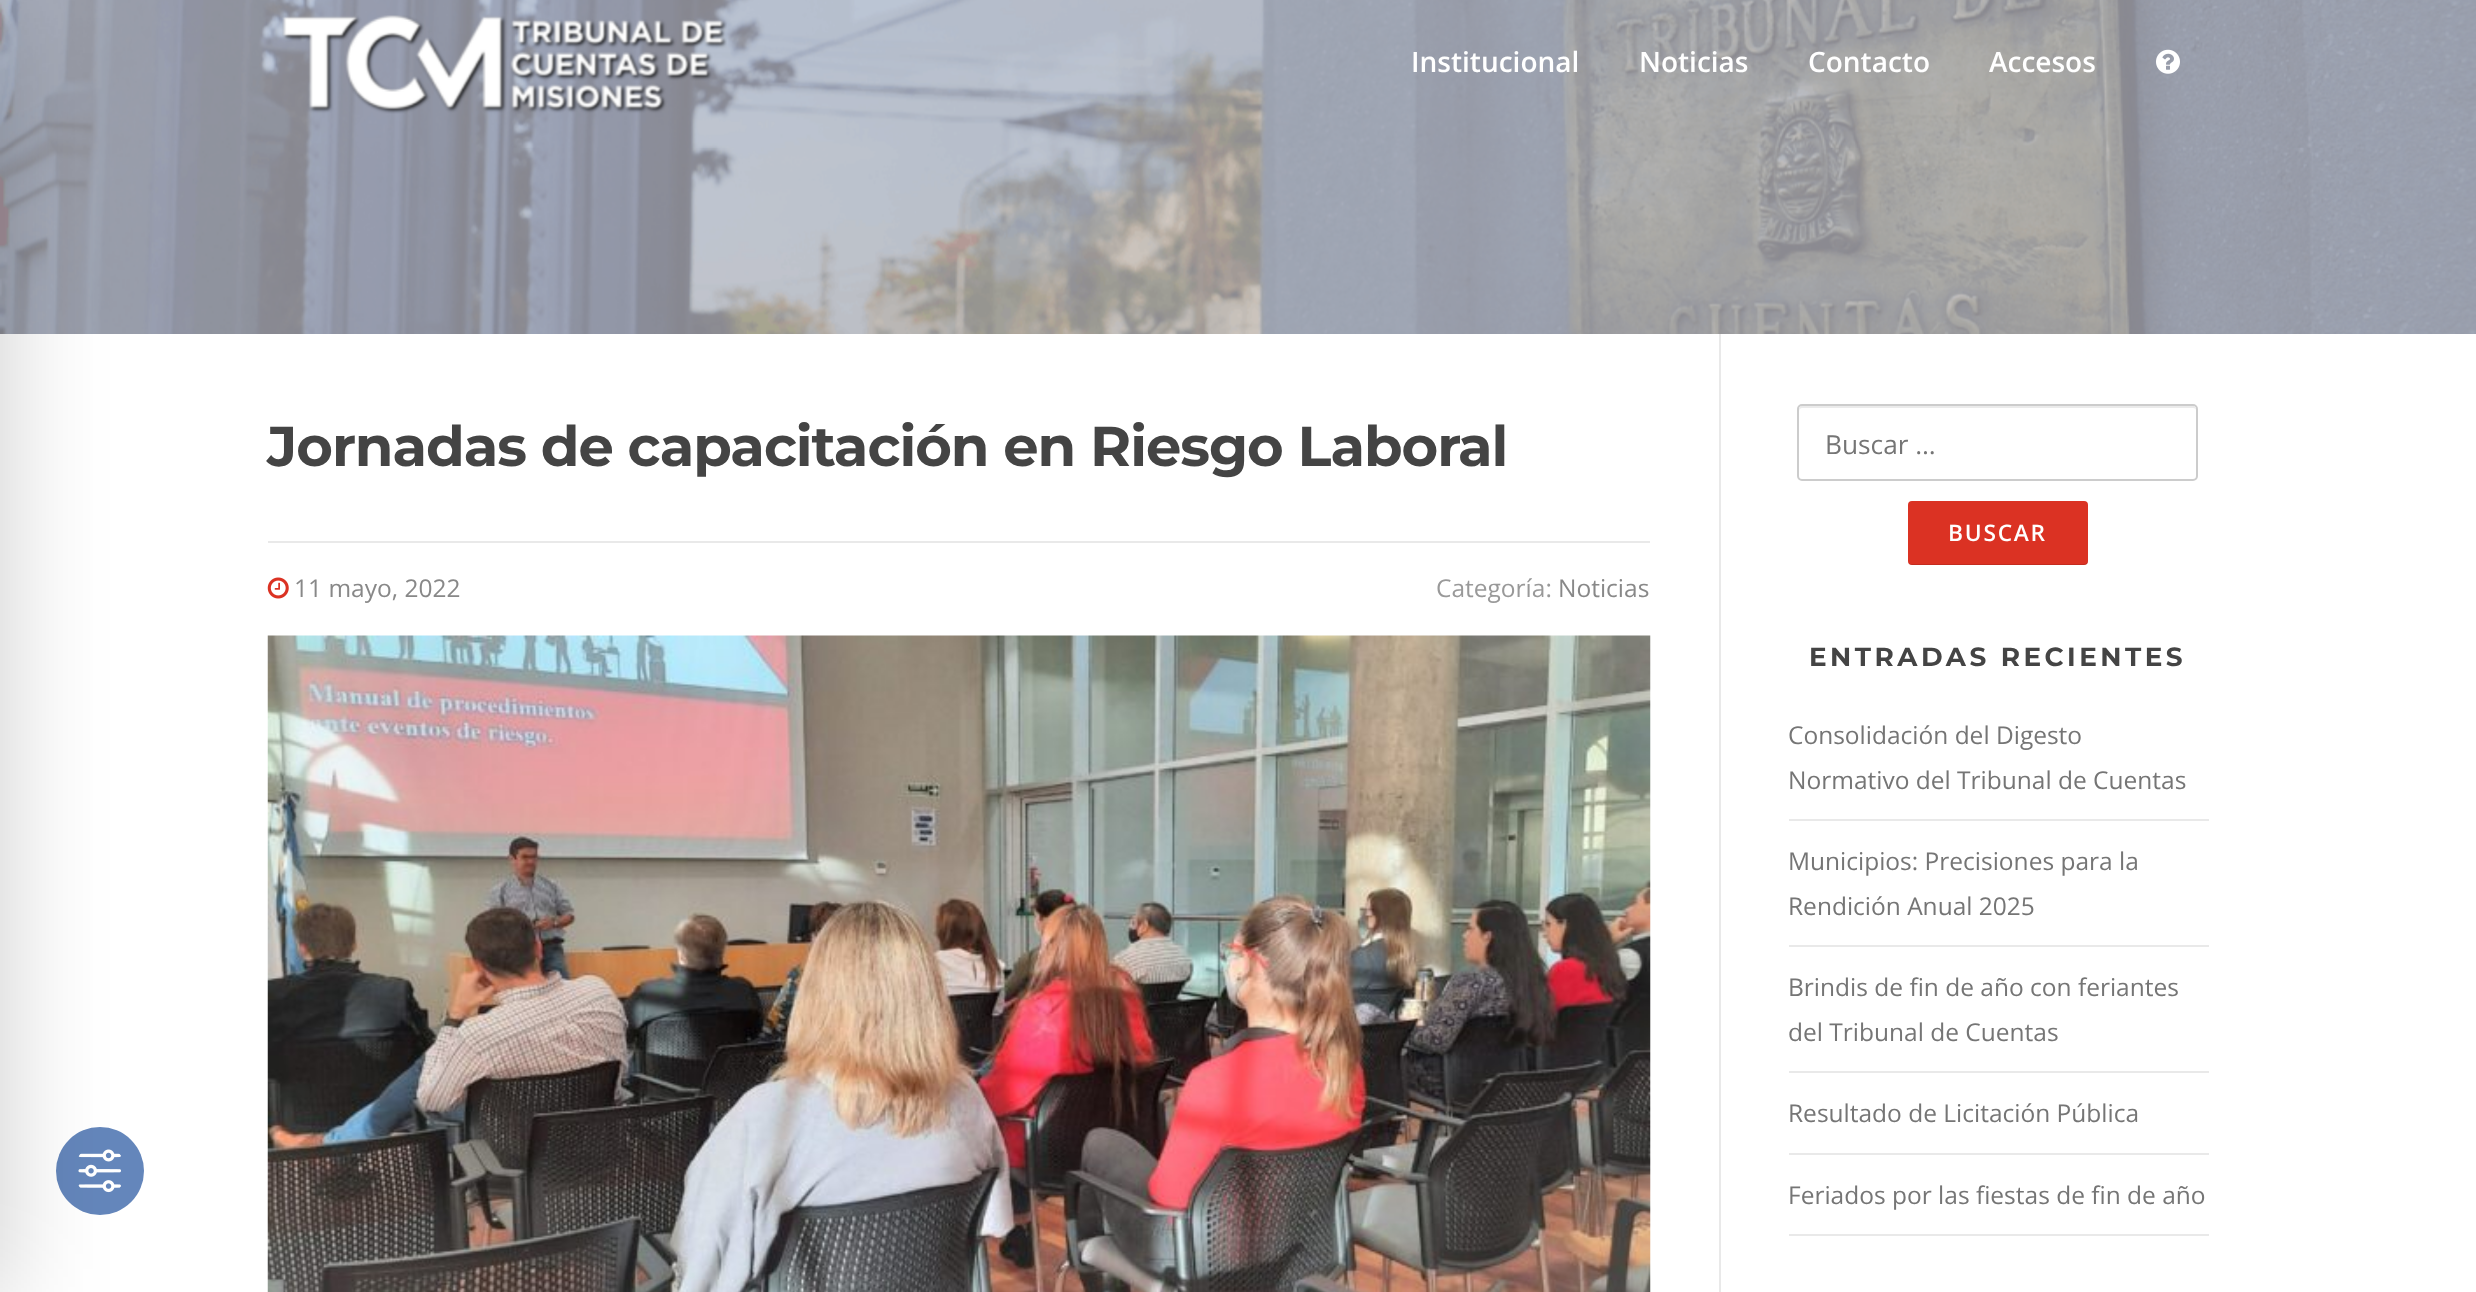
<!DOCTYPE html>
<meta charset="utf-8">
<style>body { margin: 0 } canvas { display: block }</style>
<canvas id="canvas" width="2476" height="1292"></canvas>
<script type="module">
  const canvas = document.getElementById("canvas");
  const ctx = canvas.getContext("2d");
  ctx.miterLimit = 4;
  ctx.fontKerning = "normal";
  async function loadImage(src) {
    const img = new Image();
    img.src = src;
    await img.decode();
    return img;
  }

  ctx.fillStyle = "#ffffff";
  ctx.fillRect(0, 0, 2476, 1292);
  ctx.drawImage(await loadImage("img1.png"), 0, 0, 2476, 334);
  ctx.fillStyle = "#6486bb";
  ctx.beginPath();
  ctx.arc(100, 1171, 44, 0, Math.PI * 2);
  ctx.fill();
  ctx.drawImage(await loadImage("img6.png"), 78, 1149, 43, 44);
  ctx.fillStyle = "rgba(0, 0, 0, 0.2)";
  ctx.filter = "blur(52.5px)";
  ctx.beginPath();
  ctx.rect(-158, 18, 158, 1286);
  ctx.fill();
  ctx.filter = "none";
  ctx.drawImage(await loadImage("img2.png"), 282, 15, 445, 99);
  ctx.font = "600 28px Open Sans";
  ctx.fillStyle = "#ffffff";
  ctx.fillText("Institucional", 1411, 72);
  ctx.fillText("Noticias", 1639, 72);
  ctx.fillText("Contacto", 1808, 72);
  ctx.fillText("Accesos", 1989, 72);
  ctx.drawImage(await loadImage("img3.png"), 2156, 49, 24, 25);
  ctx.fillStyle = "#e9e9e9";
  ctx.fillRect(1719, 334, 2, 958);
  ctx.letterSpacing = "-1.05px";
  ctx.font = "bold 56px Montserrat";
  ctx.fillStyle = "#444444";
  ctx.fillText("Jornadas de capacitación en Riesgo Laboral", 267, 466);
  ctx.fillStyle = "#e9e9e9";
  ctx.fillRect(268, 541, 1382, 2);
  ctx.drawImage(await loadImage("img4.png"), 267, 577, 22, 22);
  ctx.letterSpacing = "0px";
  ctx.font = "24.5px Open Sans";
  ctx.fillStyle = "#888888";
  ctx.fillText("11 mayo, 2022", 294, 597);
  ctx.fillStyle = "#999999";
  ctx.fillText("Categoría:", 1436, 597);
  ctx.fillStyle = "#888888";
  ctx.fillText("Noticias", 1558, 597);
  ctx.drawImage(await loadImage("img5.png"), 267, 635, 1384, 657);
  ctx.fillStyle = "#ebebeb";
  ctx.beginPath();
  ctx.moveTo(1802, 408);
  ctx.lineTo(2193, 408);
  ctx.bezierCurveTo(2195, 408, 2196, 409, 2196, 411);
  ctx.bezierCurveTo(2196, 408, 2195, 406, 2192, 406);
  ctx.lineTo(1803, 406);
  ctx.bezierCurveTo(1800, 406, 1799, 408, 1799, 411);
  ctx.bezierCurveTo(1799, 409, 1801, 408, 1802, 408);
  ctx.closePath();
  ctx.fill();
  ctx.beginPath();
  ctx.roundRect(1798, 405, 399, 75, 4);
  ctx.strokeStyle = "#cccccc";
  ctx.lineWidth = 2;
  ctx.stroke();
  ctx.font = "26.25px Open Sans";
  ctx.fillStyle = "#757575";
  ctx.fillText("Buscar …", 1825, 454);
  ctx.fillStyle = "#db3223";
  ctx.beginPath();
  ctx.roundRect(1908, 501, 180, 64, 4);
  ctx.fill();
  ctx.fillStyle = "rgba(0, 0, 0, 0.1)";
  ctx.beginPath();
  ctx.moveTo(1908, 560);
  ctx.lineTo(1908, 561);
  ctx.bezierCurveTo(1908, 563, 1910, 565, 1912, 565);
  ctx.lineTo(2084, 565);
  ctx.bezierCurveTo(2086, 565, 2088, 563, 2088, 561);
  ctx.lineTo(2088, 560);
  ctx.bezierCurveTo(2088, 562, 2086, 564, 2084, 564);
  ctx.lineTo(1911, 564);
  ctx.bezierCurveTo(1909, 564, 1908, 562, 1908, 560);
  ctx.closePath();
  ctx.fill();
  ctx.letterSpacing = "1.75px";
  ctx.font = "600 22.75px Open Sans";
  ctx.fillStyle = "#ffffff";
  ctx.fillText("BUSCAR", 1948, 541);
  ctx.letterSpacing = "3.5px";
  ctx.font = "bold 26.25px Montserrat";
  ctx.fillStyle = "#444444";
  ctx.fillText("ENTRADAS RECIENTES", 1809, 666);
  ctx.fillStyle = "#e9e9e9";
  ctx.fillRect(1789, 819, 420, 2);
  ctx.letterSpacing = "0px";
  ctx.font = "24.5px Open Sans";
  ctx.fillStyle = "#757575";
  ctx.fillText("Consolidación del Digesto", 1788, 744);
  ctx.fillText("Normativo del Tribunal de Cuentas", 1788, 789);
  ctx.fillStyle = "#e9e9e9";
  ctx.fillRect(1789, 945, 420, 2);
  ctx.fillStyle = "#757575";
  ctx.fillText("Municipios: Precisiones para la", 1788, 870);
  ctx.fillText("Rendición Anual 2025", 1788, 915);
  ctx.fillStyle = "#e9e9e9";
  ctx.fillRect(1789, 1071, 420, 2);
  ctx.fillStyle = "#757575";
  ctx.fillText("Brindis de fin de año con feriantes", 1788, 996);
  ctx.fillText("del Tribunal de Cuentas", 1788, 1041);
  ctx.fillStyle = "#e9e9e9";
  ctx.fillRect(1789, 1153, 420, 2);
  ctx.fillStyle = "#757575";
  ctx.fillText("Resultado de Licitación Pública", 1788, 1122);
  ctx.fillStyle = "#e9e9e9";
  ctx.fillRect(1789, 1234, 420, 2);
  ctx.fillStyle = "#757575";
  ctx.fillText("Feriados por las fiestas de fin de año", 1788, 1204);
</script>
